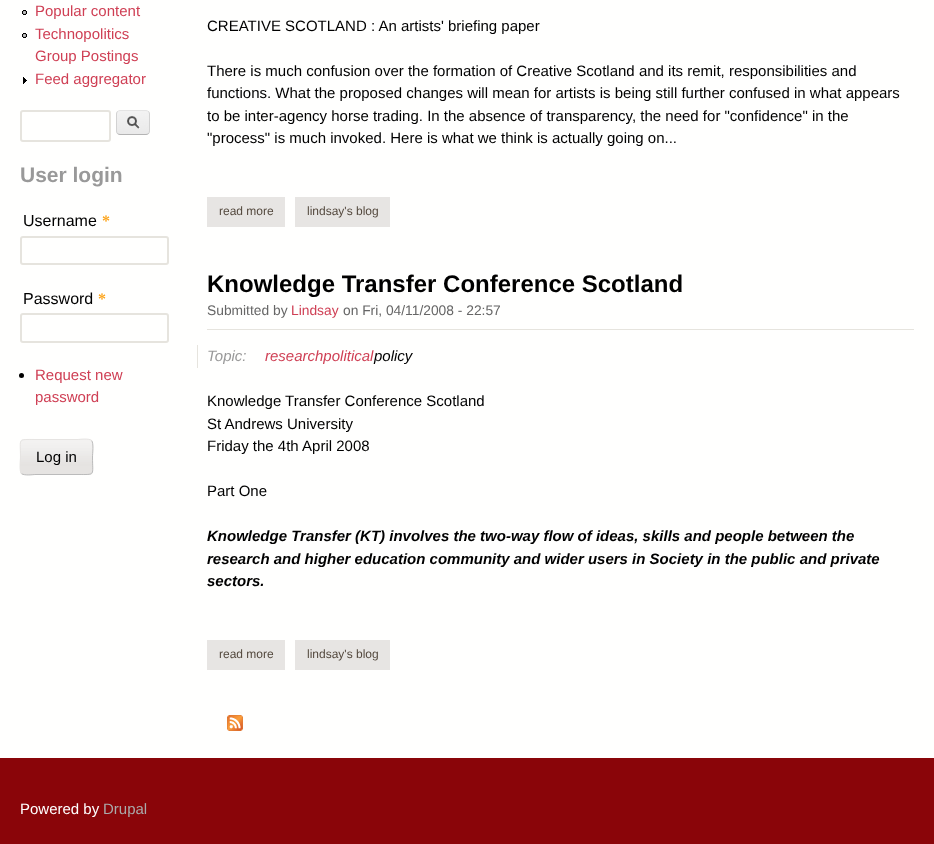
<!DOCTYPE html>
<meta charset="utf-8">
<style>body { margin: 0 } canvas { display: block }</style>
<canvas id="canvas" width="934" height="844"></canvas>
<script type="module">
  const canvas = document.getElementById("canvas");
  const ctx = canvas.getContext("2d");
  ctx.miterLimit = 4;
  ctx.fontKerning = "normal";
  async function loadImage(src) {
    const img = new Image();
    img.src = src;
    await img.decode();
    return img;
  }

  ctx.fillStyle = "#fffffe";
  ctx.fillRect(0, 0, 934, 844);
  ctx.drawImage(await loadImage("img1.png"), 22, 10, 5, 5);
  ctx.font = "15px Liberation Sans";
  ctx.fillStyle = "#cf3f54";
  ctx.fillText("Popular content", 35, 16);
  ctx.drawImage(await loadImage("img1.png"), 22, 33, 5, 5);
  ctx.fillText("Technopolitics", 35, 39);
  ctx.fillText("Group Postings", 35, 61);
  ctx.drawImage(await loadImage("img2.png"), 23, 77, 4, 7);
  ctx.fillText("Feed aggregator", 35, 84);
  ctx.beginPath();
  ctx.roundRect(21, 111, 89, 30, 2);
  ctx.strokeStyle = "#e6e4de";
  ctx.lineWidth = 2;
  ctx.stroke();
  ctx.drawImage(await loadImage("img3.png"), 116, 111, 34, 24);
  ctx.beginPath();
  ctx.moveTo(117.5, 111.5);
  ctx.bezierCurveTo(118, 111, 119, 110.5, 120, 110.5);
  ctx.lineTo(146, 110.5);
  ctx.bezierCurveTo(147, 110.5, 148, 111, 148.5, 111.5);
  ctx.strokeStyle = "#e4e4e4";
  ctx.lineWidth = 1;
  ctx.stroke();
  ctx.beginPath();
  ctx.moveTo(148.5, 111.5);
  ctx.bezierCurveTo(149, 112, 149.5, 113, 149.5, 114);
  ctx.lineTo(149.5, 131);
  ctx.bezierCurveTo(149.5, 132, 149, 133, 148.5, 133.5);
  ctx.strokeStyle = "#d2d2d2";
  ctx.stroke();
  ctx.beginPath();
  ctx.moveTo(148.5, 133.5);
  ctx.bezierCurveTo(148, 134, 147, 134.5, 146, 134.5);
  ctx.lineTo(120, 134.5);
  ctx.bezierCurveTo(119, 134.5, 118, 134, 117.5, 133.5);
  ctx.strokeStyle = "#b4b4b4";
  ctx.stroke();
  ctx.beginPath();
  ctx.moveTo(117.5, 133.5);
  ctx.bezierCurveTo(117, 133, 116.5, 132, 116.5, 131);
  ctx.lineTo(116.5, 114);
  ctx.bezierCurveTo(116.5, 113, 117, 112, 117.5, 111.5);
  ctx.strokeStyle = "#d2d2d2";
  ctx.stroke();
  ctx.font = "bold 21px Liberation Sans";
  ctx.fillStyle = "#999999";
  ctx.fillText("User login", 20, 182);
  ctx.font = "16px Liberation Sans";
  ctx.fillStyle = "#000000";
  ctx.fillText("Username", 23, 226);
  ctx.font = "bold 16px Liberation Serif";
  ctx.fillStyle = "#fda61f";
  ctx.fillText("*", 102, 226);
  ctx.beginPath();
  ctx.roundRect(21, 237, 147, 27, 2);
  ctx.strokeStyle = "#e6e4de";
  ctx.lineWidth = 2;
  ctx.stroke();
  ctx.font = "16px Liberation Sans";
  ctx.fillStyle = "#000000";
  ctx.fillText("Password", 23, 304);
  ctx.font = "bold 16px Liberation Serif";
  ctx.fillStyle = "#fda61f";
  ctx.fillText("*", 98, 304);
  ctx.beginPath();
  ctx.roundRect(21, 314, 147, 28, 2);
  ctx.stroke();
  ctx.fillStyle = "#000000";
  ctx.beginPath();
  ctx.arc(21.5, 375.5, 2.5, 0, Math.PI * 2);
  ctx.fill();
  ctx.font = "15px Liberation Sans";
  ctx.fillStyle = "#cf3f54";
  ctx.fillText("Request new", 35, 380);
  ctx.fillText("password", 35, 402);
  ctx.drawImage(await loadImage("img4.png"), 20, 439, 73, 36);
  ctx.beginPath();
  ctx.moveTo(91.5, 440.5);
  ctx.bezierCurveTo(94, 443, 92.5, 454, 92.5, 457);
  ctx.bezierCurveTo(92.5, 476, 96, 474.5, 78, 474.5);
  ctx.lineTo(35, 474.5);
  ctx.bezierCurveTo(34, 474.5, 24, 476, 21.5, 473.5);
  ctx.strokeStyle = "#bbbbbb";
  ctx.lineWidth = 1;
  ctx.stroke();
  ctx.beginPath();
  ctx.moveTo(21.5, 473.5);
  ctx.bezierCurveTo(19, 471, 20.5, 460, 20.5, 457);
  ctx.bezierCurveTo(20.5, 438, 17, 439.5, 35, 439.5);
  ctx.lineTo(78, 439.5);
  ctx.bezierCurveTo(79, 439.5, 89, 438, 91.5, 440.5);
  ctx.strokeStyle = "#e6e4e2";
  ctx.stroke();
  ctx.fillStyle = "#000000";
  ctx.fillText("Log in", 36, 462);
  ctx.fillText("CREATIVE SCOTLAND : An artists' briefing paper", 207, 31);
  ctx.fillText("There is much confusion over the formation of Creative Scotland and its remit, responsibilities and", 207, 76);
  ctx.fillText("functions. What the proposed changes will mean for artists is being still further confused in what appears", 207, 98);
  ctx.fillText("to be inter-agency horse trading. In the absence of transparency, the need for \"confidence\" in the", 207, 121);
  ctx.fillText("\"process\" is much invoked. Here is what we think is actually going on...", 207, 143);
  ctx.fillStyle = "#e7e5e3";
  ctx.fillRect(207, 197, 78, 30);
  ctx.font = "12px Liberation Sans";
  ctx.fillStyle = "#54493e";
  ctx.fillText("read more", 219, 215);
  ctx.fillStyle = "#e7e5e3";
  ctx.fillRect(295, 197, 95, 30);
  ctx.fillStyle = "#54493e";
  ctx.fillText("lindsay's blog", 307, 215);
  ctx.fillStyle = "#e6e4de";
  ctx.fillRect(207, 329, 707, 1);
  ctx.font = "bold 24px Liberation Sans";
  ctx.fillStyle = "#000000";
  ctx.fillText("Knowledge Transfer Conference Scotland", 207, 292);
  ctx.font = "13.8px Liberation Sans";
  ctx.fillStyle = "#666666";
  ctx.fillText("Submitted by", 207, 315);
  ctx.fillStyle = "#cf3f54";
  ctx.fillText("Lindsay", 291, 315);
  ctx.fillStyle = "#666666";
  ctx.fillText("on Fri, 04/11/2008 - 22:57", 343, 315);
  ctx.fillStyle = "#e6e4de";
  ctx.fillRect(197, 345, 1, 23);
  ctx.font = "italic 15px Liberation Sans";
  ctx.fillStyle = "#999999";
  ctx.fillText("Topic:", 207, 361);
  ctx.fillStyle = "#cf3f54";
  ctx.fillText("researchpolitical", 265, 361);
  ctx.fillStyle = "#000000";
  ctx.fillText("policy", 374, 361);
  ctx.font = "15px Liberation Sans";
  ctx.fillText("Knowledge Transfer Conference Scotland", 207, 406);
  ctx.fillText("St Andrews University", 207, 429);
  ctx.fillText("Friday the 4th April 2008", 207, 451);
  ctx.fillText("Part One", 207, 496);
  ctx.font = "italic bold 15px Liberation Sans";
  ctx.fillText("Knowledge Transfer (KT) involves the two-way flow of ideas, skills and people between the", 207, 541);
  ctx.fillText("research and higher education community and wider users in Society in the public and private", 207, 564);
  ctx.fillText("sectors.", 207, 586);
  ctx.fillStyle = "#e7e5e3";
  ctx.fillRect(207, 640, 78, 30);
  ctx.font = "12px Liberation Sans";
  ctx.fillStyle = "#54493e";
  ctx.fillText("read more", 219, 658);
  ctx.fillStyle = "#e7e5e3";
  ctx.fillRect(295, 640, 95, 30);
  ctx.fillStyle = "#54493e";
  ctx.fillText("lindsay's blog", 307, 658);
  ctx.drawImage(await loadImage("img5.png"), 227, 715, 16, 16);
  ctx.fillStyle = "#8a0509";
  ctx.fillRect(0, 758, 934, 86);
  ctx.font = "15px Liberation Sans";
  ctx.fillStyle = "#ffffff";
  ctx.fillText("Powered by", 20, 814);
  ctx.fillStyle = "#aaaaaa";
  ctx.fillText("Drupal", 103, 814);
</script>
